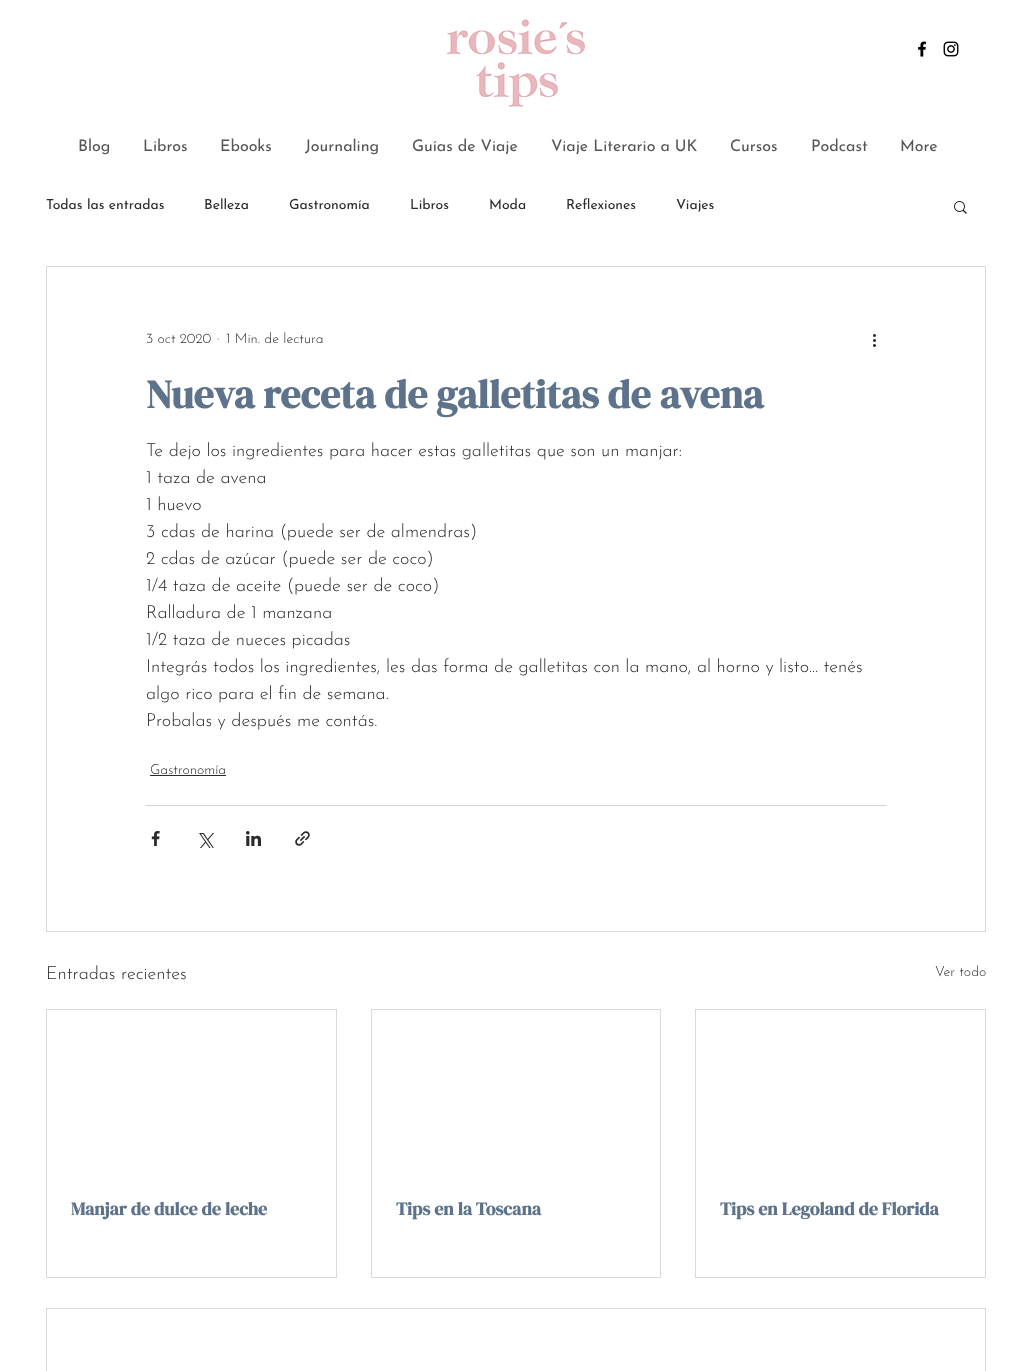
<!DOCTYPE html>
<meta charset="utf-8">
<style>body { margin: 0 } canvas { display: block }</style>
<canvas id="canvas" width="1032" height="1371"></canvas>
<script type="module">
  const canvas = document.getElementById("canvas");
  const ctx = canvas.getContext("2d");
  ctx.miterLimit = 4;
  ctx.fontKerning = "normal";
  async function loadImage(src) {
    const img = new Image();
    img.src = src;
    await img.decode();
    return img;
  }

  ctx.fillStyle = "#ffffff";
  ctx.fillRect(0, 0, 1032, 1371);
  ctx.drawImage(await loadImage("img1.png"), 447, 19, 138, 88);
  ctx.drawImage(await loadImage("img2.png"), 918, 41, 9, 16);
  ctx.drawImage(await loadImage("img3.png"), 943, 41, 16, 16);
  ctx.font = "16px Josefin Sans";
  ctx.fillStyle = "#555555";
  ctx.fillText("Blog", 78, 151);
  ctx.fillText("Libros", 143, 151);
  ctx.fillText("Ebooks", 220, 151);
  ctx.fillText("Journaling", 305, 151);
  ctx.fillText("Guías de Viaje", 412, 151);
  ctx.fillText("Viaje Literario a UK", 551, 151);
  ctx.fillText("Cursos", 730, 151);
  ctx.fillText("Podcast", 811, 151);
  ctx.fillText("More", 900, 151);
  ctx.font = "14px Josefin Sans";
  ctx.fillStyle = "#2a2a2a";
  ctx.fillText("Todas las entradas", 46, 209);
  ctx.fillText("Belleza", 204, 209);
  ctx.fillText("Gastronomía", 289, 209);
  ctx.fillText("Libros", 410, 209);
  ctx.fillText("Moda", 489, 209);
  ctx.fillText("Reflexiones", 566, 209);
  ctx.fillText("Viajes", 676, 209);
  ctx.drawImage(await loadImage("img4.png"), 954, 201, 13, 13);
  ctx.strokeStyle = "#d9d9d9";
  ctx.strokeRect(46.5, 266.5, 939, 665);
  ctx.font = "300 14px Josefin Sans";
  ctx.fillText("3 oct 2020", 146, 343);
  ctx.fillText("·", 217, 343);
  ctx.fillText("1 Min. de lectura", 226, 343);
  ctx.drawImage(await loadImage("img5.png"), 873, 334, 3, 13);
  ctx.font = "bold 40px DM Serif Display";
  ctx.fillStyle = "#5d738b";
  ctx.fillText("Nueva receta de galletitas de avena", 146, 408);
  ctx.font = "300 18px Josefin Sans";
  ctx.fillStyle = "#2a2a2a";
  ctx.fillText("Te dejo los ingredientes para hacer estas galletitas que son un manjar:", 146, 456);
  ctx.fillText("1 taza de avena", 146, 483);
  ctx.fillText("1 huevo", 146, 510);
  ctx.fillText("3 cdas de harina (puede ser de almendras)", 146, 537);
  ctx.fillText("2 cdas de azúcar (puede ser de coco)", 146, 564);
  ctx.fillText("1/4 taza de aceite (puede ser de coco)", 146, 591);
  ctx.fillText("Ralladura de 1 manzana", 146, 618);
  ctx.fillText("1/2 taza de nueces picadas", 146, 645);
  ctx.fillText("Integrás todos los ingredientes, les das forma de galletitas con la mano, al horno y listo... tenés", 146, 672);
  ctx.fillText("algo rico para el fin de semana.", 146, 699);
  ctx.fillText("Probalas y después me contás.", 146, 726);
  ctx.font = "300 14px Josefin Sans";
  ctx.fillText("Gastronomía", 150, 774);
  ctx.fillRect(150, 775, 76, 1);
  ctx.fillStyle = "#d4d4d4";
  ctx.fillRect(146, 805, 740, 1);
  ctx.drawImage(await loadImage("img6.png"), 151, 831, 9, 15);
  ctx.drawImage(await loadImage("img7.png"), 199, 833, 15, 15);
  ctx.drawImage(await loadImage("img8.png"), 246, 831, 15, 15);
  ctx.drawImage(await loadImage("img9.png"), 295, 831, 15, 15);
  ctx.font = "300 18px Josefin Sans";
  ctx.fillStyle = "#2a2a2a";
  ctx.fillText("Entradas recientes", 46, 979);
  ctx.font = "300 14px Josefin Sans";
  ctx.fillText("Ver todo", 935, 976);
  ctx.strokeRect(46.5, 1009.5, 290, 268);
  ctx.font = "bold 18px DM Serif Display";
  ctx.fillStyle = "#5d738b";
  ctx.fillText("Manjar de dulce de leche", 71, 1215);
  ctx.strokeRect(371.5, 1009.5, 289, 268);
  ctx.fillText("Tips en la Toscana", 396, 1215);
  ctx.strokeRect(695.5, 1009.5, 290, 268);
  ctx.fillText("Tips en Legoland de Florida", 720, 1215);
  ctx.strokeRect(46.5, 1308.5, 939, 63);
</script>
